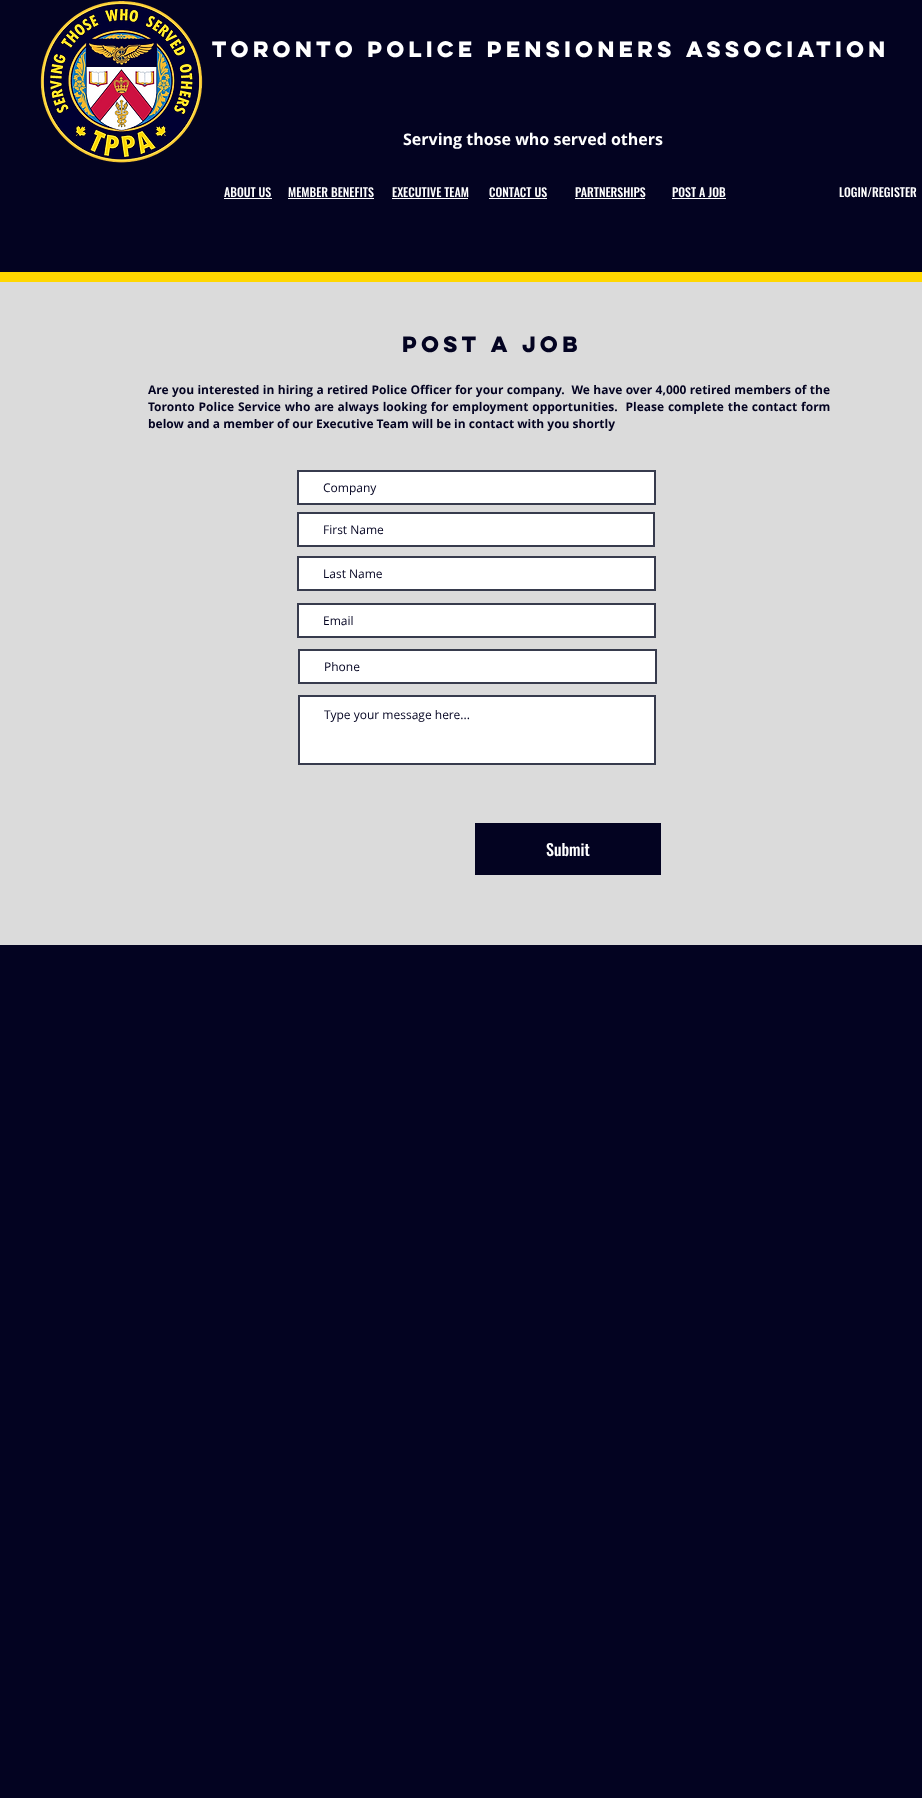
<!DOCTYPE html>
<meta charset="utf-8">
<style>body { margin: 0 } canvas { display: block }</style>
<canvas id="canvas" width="922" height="1798"></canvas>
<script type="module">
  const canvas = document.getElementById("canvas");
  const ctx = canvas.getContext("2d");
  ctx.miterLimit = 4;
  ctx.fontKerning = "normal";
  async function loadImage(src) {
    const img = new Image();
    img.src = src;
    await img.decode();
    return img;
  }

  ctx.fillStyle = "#030321";
  ctx.fillRect(0, 0, 922, 1798);
  ctx.drawImage(await loadImage("img1.png"), 40, 1, 163, 162);
  ctx.font = "bold 20px 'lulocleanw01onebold'";
  ctx.fillStyle = "#ffffff";
  ctx.fillText("Toronto Police Pensioners Association", 212, 57);
  ctx.font = "bold 16px Open Sans";
  ctx.fillText("Serving those who served others", 403, 145);
  ctx.font = "500 12px Oswald";
  ctx.fillText("ABOUT US", 224, 197);
  ctx.fillRect(224, 198, 48, 1);
  ctx.fillText("MEMBER BENEFITS", 288, 197);
  ctx.fillRect(288, 198, 86, 1);
  ctx.fillText("EXECUTIVE TEAM", 392, 197);
  ctx.fillRect(392, 198, 76, 1);
  ctx.fillText("CONTACT US", 489, 197);
  ctx.fillRect(489, 198, 58, 1);
  ctx.fillText("PARTNERSHIPS", 575, 197);
  ctx.fillRect(575, 198, 70, 1);
  ctx.fillText("POST A JOB", 672, 197);
  ctx.fillRect(672, 198, 54, 1);
  ctx.fillText("LOGIN/REGISTER", 839, 197);
  ctx.fillStyle = "#ffd700";
  ctx.fillRect(0, 272, 922, 10);
  ctx.fillStyle = "#dbdbdb";
  ctx.fillRect(0, 282, 922, 663);
  ctx.font = "bold 20px 'lulocleanw01onebold'";
  ctx.fillStyle = "#030321";
  ctx.fillText("POST A JOB", 402, 352);
  ctx.wordSpacing = "0.25px";
  ctx.font = "bold 12px Open Sans";
  ctx.fillText("Are you interested in hiring a retired Police Officer for your company.  We have over 4,000 retired members of the", 148, 394);
  ctx.wordSpacing = "0.75px";
  ctx.fillText("Toronto Police Service who are always looking for employment opportunities.  Please complete the contact form", 148, 411);
  ctx.wordSpacing = "0px";
  ctx.fillText("below and a member of our Executive Team will be in contact with you shortly", 148, 428);
  ctx.fillStyle = "#ffffff";
  ctx.beginPath();
  ctx.rect(298, 471, 357, 33);
  ctx.fill();
  ctx.strokeStyle = "#373b4d";
  ctx.lineWidth = 2;
  ctx.stroke();
  ctx.font = "12px Open Sans";
  ctx.fillStyle = "#030321";
  ctx.fillText("Company", 323, 492);
  ctx.fillStyle = "#ffffff";
  ctx.beginPath();
  ctx.rect(298, 513, 356, 33);
  ctx.fill();
  ctx.stroke();
  ctx.fillStyle = "#030321";
  ctx.fillText("First Name", 323, 534);
  ctx.fillStyle = "#ffffff";
  ctx.beginPath();
  ctx.rect(298, 557, 357, 33);
  ctx.fill();
  ctx.stroke();
  ctx.fillStyle = "#030321";
  ctx.fillText("Last Name", 323, 578);
  ctx.fillStyle = "#ffffff";
  ctx.beginPath();
  ctx.rect(298, 604, 357, 33);
  ctx.fill();
  ctx.stroke();
  ctx.fillStyle = "#030321";
  ctx.fillText("Email", 323, 625);
  ctx.fillStyle = "#ffffff";
  ctx.beginPath();
  ctx.rect(299, 650, 357, 33);
  ctx.fill();
  ctx.stroke();
  ctx.fillStyle = "#030321";
  ctx.fillText("Phone", 324, 671);
  ctx.fillStyle = "#ffffff";
  ctx.beginPath();
  ctx.rect(299, 696, 356, 68);
  ctx.fill();
  ctx.stroke();
  ctx.fillStyle = "#030321";
  ctx.fillText("Type your message here...", 324, 719);
  ctx.fillRect(475, 823, 186, 52);
  ctx.font = "500 16px Oswald";
  ctx.fillStyle = "#ffffff";
  ctx.fillText("Submit", 546, 856);
</script>
